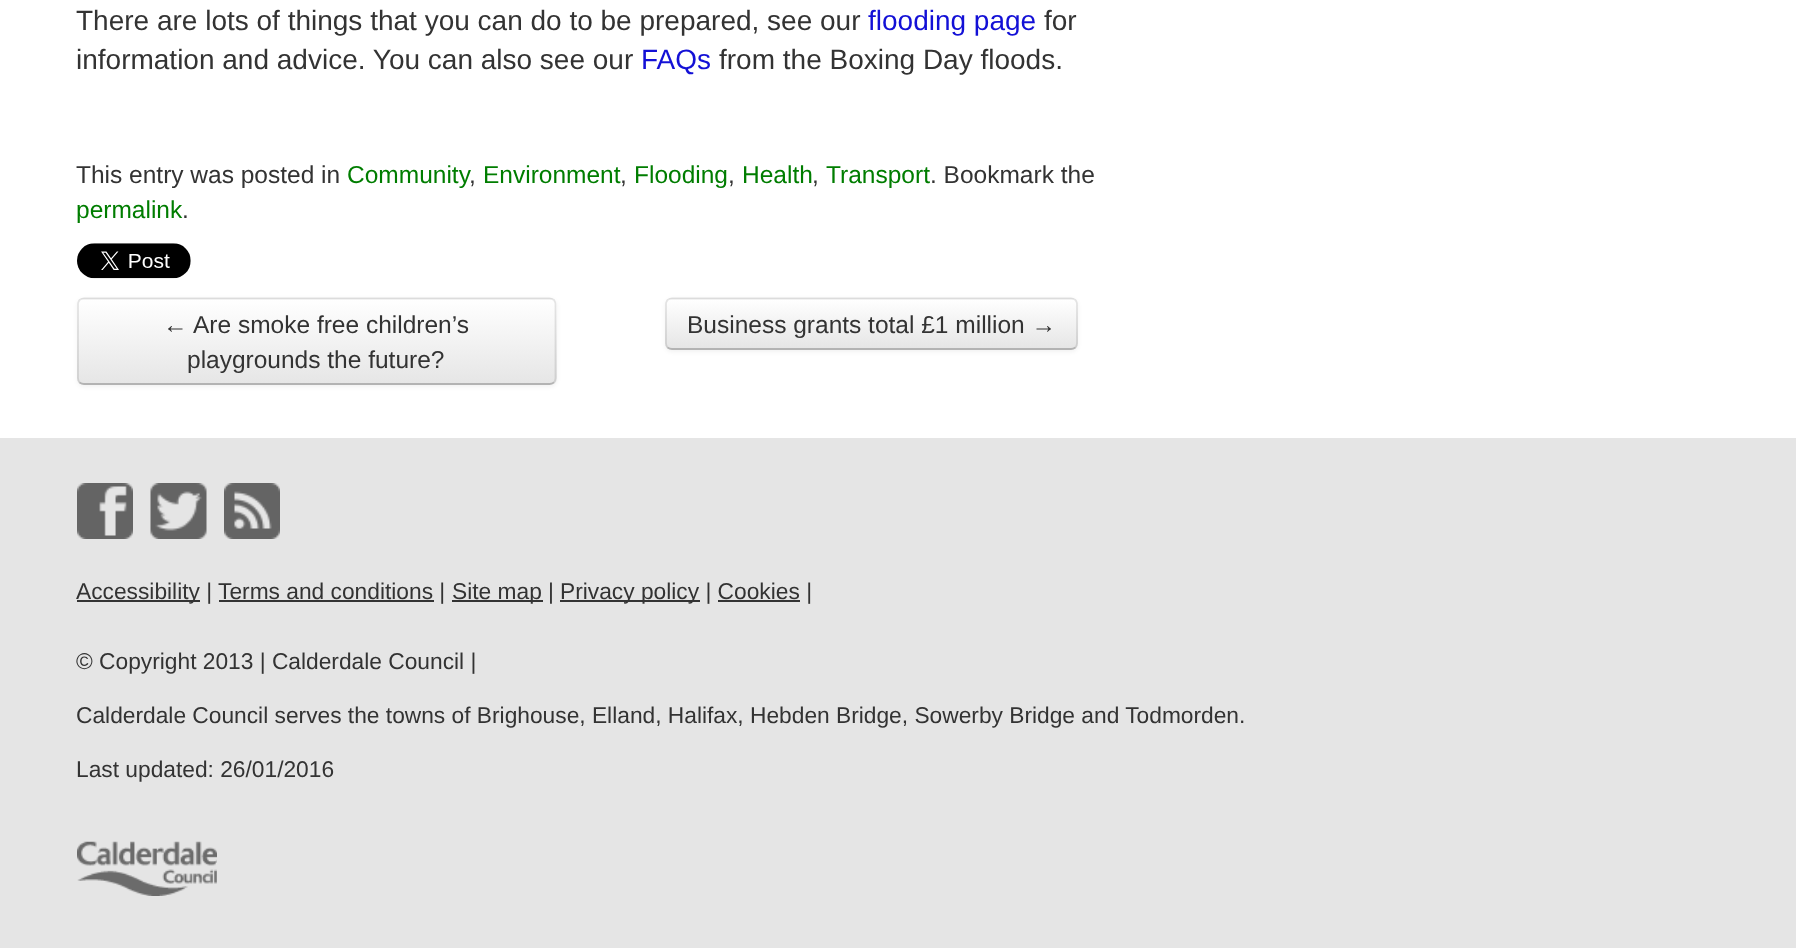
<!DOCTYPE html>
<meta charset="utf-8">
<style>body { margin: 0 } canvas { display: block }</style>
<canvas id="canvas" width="1796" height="948"></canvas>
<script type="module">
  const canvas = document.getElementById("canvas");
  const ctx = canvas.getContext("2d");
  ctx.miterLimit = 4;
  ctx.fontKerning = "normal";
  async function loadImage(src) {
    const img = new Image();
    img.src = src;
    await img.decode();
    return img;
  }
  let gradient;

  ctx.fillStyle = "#ffffff";
  ctx.fillRect(0, 0, 1796, 948);
  ctx.font = "28px Liberation Sans";
  ctx.fillStyle = "#333333";
  ctx.fillText("There are lots of things that you can do to be prepared, see our", 76, 30);
  ctx.fillStyle = "#1310d6";
  ctx.fillText("flooding page", 868, 30);
  ctx.fillStyle = "#333333";
  ctx.fillText("for", 1044, 30);
  ctx.fillText("information and advice. You can also see our", 76, 69);
  ctx.fillStyle = "#1310d6";
  ctx.fillText("FAQs", 641, 69);
  ctx.fillStyle = "#333333";
  ctx.fillText("from the Boxing Day floods.", 719, 69);
  ctx.font = "24.5px Liberation Sans";
  ctx.fillText("This entry was posted in", 76, 183);
  ctx.fillStyle = "#007d00";
  ctx.fillText("Community", 347, 183);
  ctx.fillStyle = "#333333";
  ctx.fillText(",", 469, 183);
  ctx.fillStyle = "#007d00";
  ctx.fillText("Environment", 483, 183);
  ctx.fillStyle = "#333333";
  ctx.fillText(",", 620, 183);
  ctx.fillStyle = "#007d00";
  ctx.fillText("Flooding", 634, 183);
  ctx.fillStyle = "#333333";
  ctx.fillText(",", 728, 183);
  ctx.fillStyle = "#007d00";
  ctx.fillText("Health", 742, 183);
  ctx.fillStyle = "#333333";
  ctx.fillText(",", 812, 183);
  ctx.fillStyle = "#007d00";
  ctx.fillText("Transport", 826, 183);
  ctx.fillStyle = "#333333";
  ctx.fillText(". Bookmark the", 930, 183);
  ctx.fillStyle = "#007d00";
  ctx.fillText("permalink", 76, 218);
  ctx.fillStyle = "#333333";
  ctx.fillText(".", 182, 218);
  ctx.drawImage(await loadImage("img1.png"), 77, 243, 114, 36);
  ctx.fillStyle = "rgba(0, 0, 0, 0.05)";
  ctx.filter = "blur(2px)";
  ctx.beginPath();
  ctx.roundRect(77, 299, 480, 88, 7);
  ctx.fill();
  ctx.filter = "none";
  ctx.fillStyle = "#f5f5f5";
  ctx.beginPath();
  ctx.roundRect(77, 298, 480, 87, 7);
  ctx.fill();
  ctx.save();
  ctx.beginPath();
  ctx.roundRect(77, 298, 480, 87, 7);
  ctx.clip();
  gradient = ctx.createLinearGradient(317, 299, 317, 383);
  gradient.addColorStop(0, "#ffffff");
  gradient.addColorStop(1, "#e6e6e6");
  ctx.fillStyle = gradient;
  ctx.fillRect(77, 299, 480, 84);
  ctx.restore();
  ctx.beginPath();
  ctx.moveTo(554, 382.5);
  ctx.bezierCurveTo(552.5, 383.5, 551, 384, 549.5, 384);
  ctx.lineTo(84, 384);
  ctx.bezierCurveTo(82.5, 384, 81, 383.5, 79.5, 382.5);
  ctx.strokeStyle = "#b3b3b3";
  ctx.lineWidth = 1.8;
  ctx.stroke();
  ctx.beginPath();
  ctx.moveTo(79.5, 382.5);
  ctx.bezierCurveTo(78.5, 381, 78, 379.5, 78, 378);
  ctx.lineTo(78, 304.5);
  ctx.bezierCurveTo(78, 303, 78.5, 301.5, 79.5, 300);
  ctx.bezierCurveTo(81, 299, 82.5, 298.5, 84, 298.5);
  ctx.lineTo(549.5, 298.5);
  ctx.bezierCurveTo(551, 298.5, 552.5, 299, 554, 300);
  ctx.bezierCurveTo(555, 301.5, 555.5, 303, 555.5, 304.5);
  ctx.lineTo(555.5, 378);
  ctx.bezierCurveTo(555.5, 379.5, 555, 381, 554, 382.5);
  ctx.strokeStyle = "rgba(0, 0, 0, 0.1)";
  ctx.stroke();
  ctx.fillStyle = "#333333";
  ctx.fillText("←", 163, 333);
  ctx.fillText("Are smoke free children’s", 193, 333);
  ctx.fillText("playgrounds the future?", 187, 368);
  ctx.fillStyle = "rgba(0, 0, 0, 0.05)";
  ctx.filter = "blur(2px)";
  ctx.beginPath();
  ctx.roundRect(665, 299, 413, 53, 7);
  ctx.fill();
  ctx.filter = "none";
  ctx.fillStyle = "#f5f5f5";
  ctx.beginPath();
  ctx.roundRect(665, 298, 413, 52, 7);
  ctx.fill();
  ctx.save();
  ctx.beginPath();
  ctx.roundRect(665, 298, 413, 52, 7);
  ctx.clip();
  gradient = ctx.createLinearGradient(872, 299, 872, 348);
  gradient.addColorStop(0, "#ffffff");
  gradient.addColorStop(1, "#e6e6e6");
  ctx.fillStyle = gradient;
  ctx.fillRect(665, 299, 413, 49);
  ctx.restore();
  ctx.beginPath();
  ctx.moveTo(1075.5, 347.5);
  ctx.bezierCurveTo(1074, 348.5, 1072.5, 349, 1071, 349);
  ctx.lineTo(672, 349);
  ctx.bezierCurveTo(670.5, 349, 669, 348.5, 667.5, 347.5);
  ctx.strokeStyle = "#b3b3b3";
  ctx.stroke();
  ctx.beginPath();
  ctx.moveTo(667.5, 347.5);
  ctx.bezierCurveTo(666.5, 346, 666, 344.5, 666, 343);
  ctx.lineTo(666, 304.5);
  ctx.bezierCurveTo(666, 303, 666.5, 301.5, 667.5, 300);
  ctx.bezierCurveTo(669, 299, 670.5, 298.5, 672, 298.5);
  ctx.lineTo(1071, 298.5);
  ctx.bezierCurveTo(1072.5, 298.5, 1074, 299, 1075.5, 300);
  ctx.bezierCurveTo(1076.5, 301.5, 1077, 303, 1077, 304.5);
  ctx.lineTo(1077, 343);
  ctx.bezierCurveTo(1077, 344.5, 1076.5, 346, 1075.5, 347.5);
  ctx.strokeStyle = "rgba(0, 0, 0, 0.1)";
  ctx.stroke();
  ctx.fillStyle = "#333333";
  ctx.fillText("Business grants total £1 million →", 687, 333);
  ctx.fillStyle = "#e5e5e5";
  ctx.fillRect(0, 438, 1796, 510);
  ctx.drawImage(await loadImage("img2.png"), 77, 483, 56, 56);
  ctx.drawImage(await loadImage("img3.png"), 150, 483, 57, 56);
  ctx.drawImage(await loadImage("img4.png"), 224, 483, 56, 56);
  ctx.fillStyle = "#333333";
  ctx.fillRect(77, 600, 123, 2);
  ctx.font = "22.75px Liberation Sans";
  ctx.fillText("Accessibility | Terms and conditions |", 76, 599);
  ctx.fillRect(452, 600, 91, 2);
  ctx.fillText("Site map |", 452, 599);
  ctx.fillRect(560, 600, 140, 2);
  ctx.fillText("Privacy policy | Cookies |", 560, 599);
  ctx.fillRect(219, 600, 215, 2);
  ctx.fillRect(718, 600, 82, 2);
  ctx.fillText("© Copyright 2013 | Calderdale Council |", 76, 669);
  ctx.fillText("Calderdale Council serves the towns of Brighouse, Elland, Halifax, Hebden Bridge, Sowerby Bridge and Todmorden.", 76, 723);
  ctx.fillText("Last updated: 26/01/2016", 76, 777);
  ctx.drawImage(await loadImage("img5.png"), 77, 841, 140, 55);
</script>
